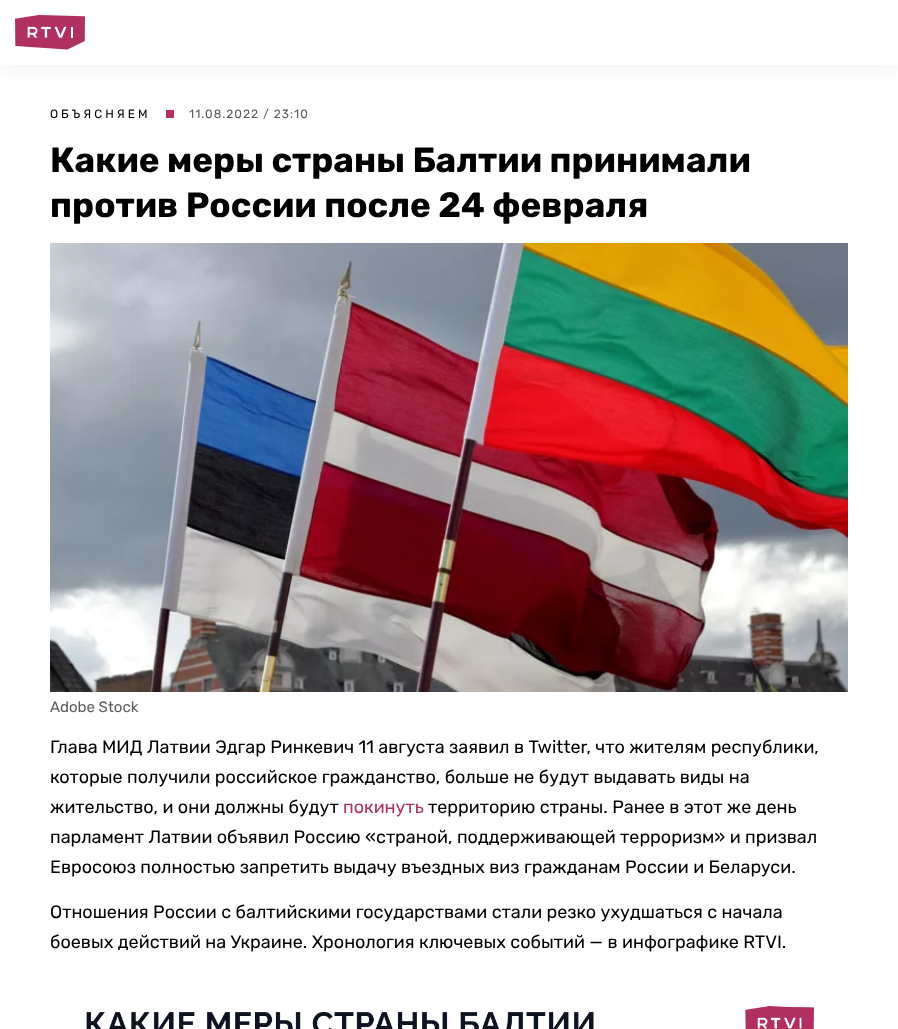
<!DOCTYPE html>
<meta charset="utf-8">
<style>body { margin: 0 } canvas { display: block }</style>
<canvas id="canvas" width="898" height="1029"></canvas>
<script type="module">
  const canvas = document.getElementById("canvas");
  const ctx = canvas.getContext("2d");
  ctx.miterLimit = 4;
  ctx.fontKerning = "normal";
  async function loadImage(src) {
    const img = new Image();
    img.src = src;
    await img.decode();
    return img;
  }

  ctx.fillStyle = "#ffffff";
  ctx.fillRect(0, 0, 898, 1029);
  ctx.fillStyle = "rgba(0, 0, 0, 0.05)";
  ctx.filter = "blur(10px)";
  ctx.beginPath();
  ctx.rect(0, 4, 898, 65);
  ctx.fill();
  ctx.filter = "none";
  ctx.fillStyle = "#ffffff";
  ctx.fillRect(0, 0, 898, 65);
  ctx.drawImage(await loadImage("img1.png"), 15, 15, 70, 35);
  ctx.letterSpacing = "3px";
  ctx.font = "12px Rubik";
  ctx.fillStyle = "#000000";
  ctx.fillText("ОБЪЯСНЯЕМ", 50, 118);
  ctx.fillStyle = "#b03060";
  ctx.fillRect(166, 110, 8, 8);
  ctx.letterSpacing = "1px";
  ctx.fillStyle = "#5a5a5a";
  ctx.fillText("11.08.2022 / 23:10", 189, 118);
  ctx.letterSpacing = "0px";
  ctx.font = "bold 35px Rubik";
  ctx.fillStyle = "#000000";
  ctx.fillText("Какие меры страны Балтии принимали", 50, 172);
  ctx.fillText("против России после 24 февраля", 50, 217);
  ctx.drawImage(await loadImage("img2.png"), 50, 243, 798, 449);
  ctx.font = "15px Rubik";
  ctx.fillStyle = "#5a5a5a";
  ctx.fillText("Adobe Stock", 50, 712);
  ctx.font = "18px Rubik";
  ctx.fillStyle = "#000000";
  ctx.fillText("Глава МИД Латвии Эдгар Ринкевич 11 августа заявил в Twitter, что жителям республики,", 50, 753);
  ctx.fillText("которые получили российское гражданство, больше не будут выдавать виды на", 50, 783);
  ctx.fillText("жительство, и они должны будут", 50, 813);
  ctx.fillStyle = "#b03060";
  ctx.fillText("покинуть", 343, 813);
  ctx.fillStyle = "#000000";
  ctx.fillText("территорию страны. Ранее в этот же день", 428, 813);
  ctx.fillText("парламент Латвии объявил Россию «страной, поддерживающей терроризм» и призвал", 50, 843);
  ctx.fillText("Евросоюз полностью запретить выдачу въездных виз гражданам России и Беларуси.", 50, 873);
  ctx.fillText("Отношения России с балтийскими государствами стали резко ухудшаться с начала", 50, 918);
  ctx.fillText("боевых действий на Украине. Хронология ключевых событий — в инфографике RTVI.", 50, 948);
  ctx.drawImage(await loadImage("img3.png"), 86, 1006, 728, 23);
</script>
